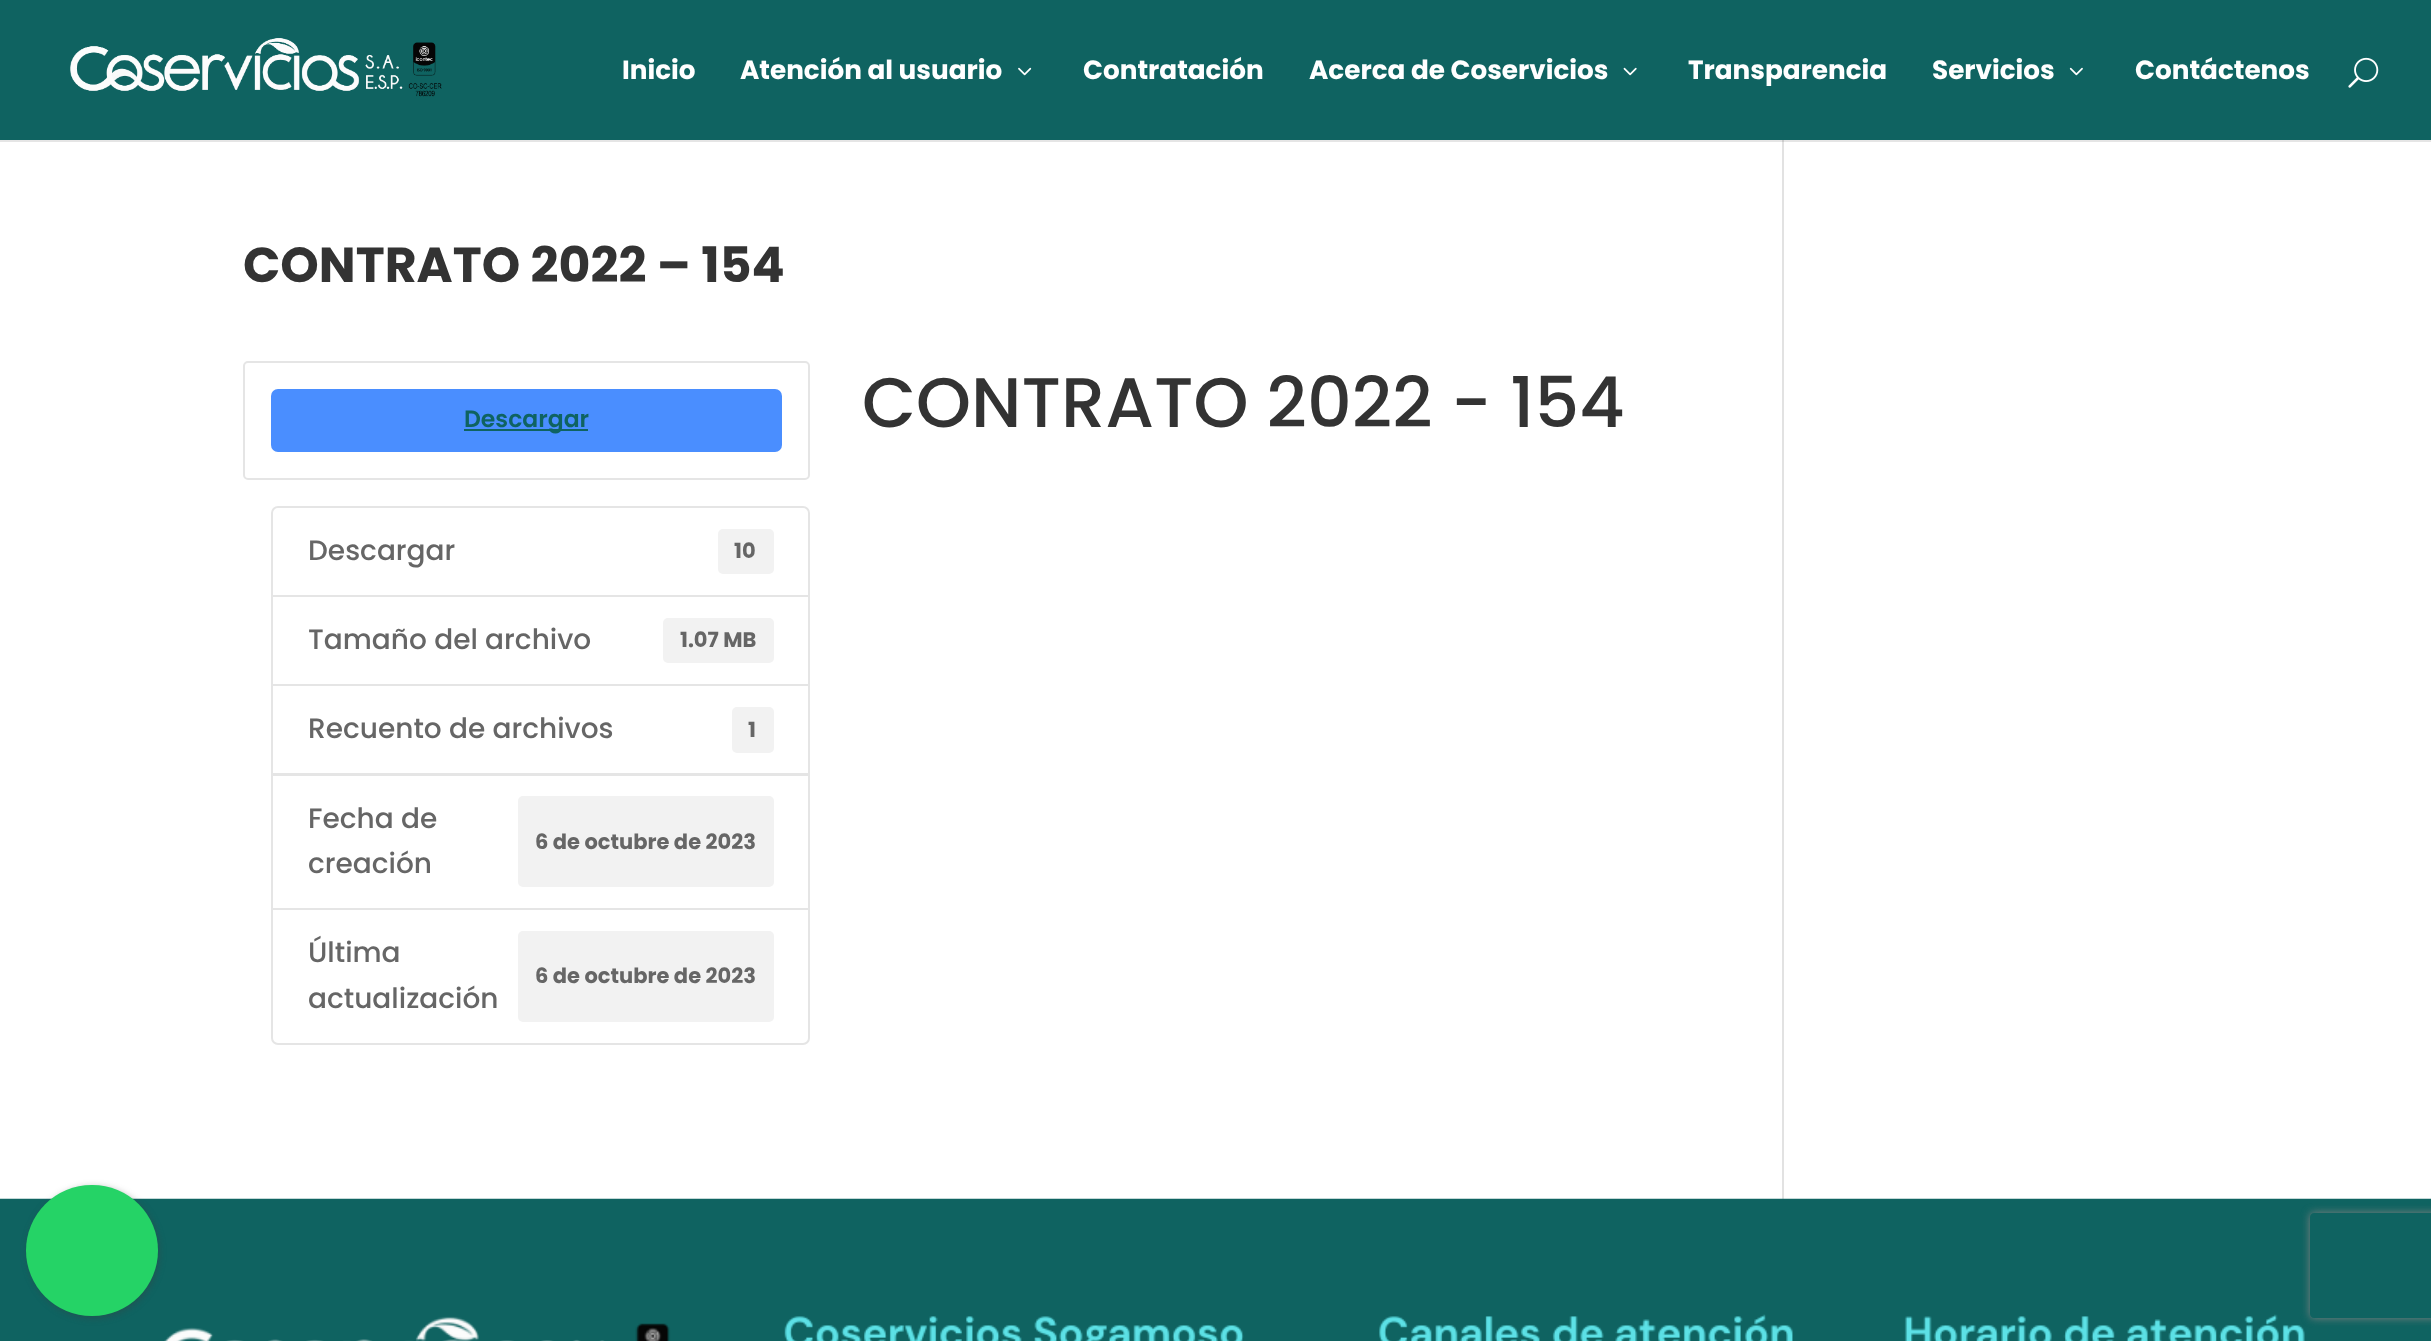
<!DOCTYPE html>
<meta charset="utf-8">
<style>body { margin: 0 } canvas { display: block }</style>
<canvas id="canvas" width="2431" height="1341"></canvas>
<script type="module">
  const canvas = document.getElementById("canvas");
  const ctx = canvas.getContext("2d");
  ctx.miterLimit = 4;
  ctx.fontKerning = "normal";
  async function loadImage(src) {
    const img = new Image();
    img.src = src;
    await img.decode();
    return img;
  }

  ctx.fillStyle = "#ffffff";
  ctx.fillRect(0, 0, 2431, 1341);
  ctx.fillStyle = "#e2e2e2";
  ctx.fillRect(1782, 140, 2, 1059);
  ctx.fillStyle = "rgba(0, 0, 0, 0.1)";
  ctx.beginPath();
  ctx.moveTo(0, 140);
  ctx.lineTo(0, 142);
  ctx.lineTo(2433, 142);
  ctx.lineTo(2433, 2);
  ctx.lineTo(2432, 2);
  ctx.lineTo(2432, 140);
  ctx.closePath();
  ctx.fill();
  ctx.fillStyle = "#0f6361";
  ctx.fillRect(0, 0, 2431, 140);
  ctx.drawImage(await loadImage("img1.png"), 70, 38, 372, 59);
  ctx.font = "bold 26.25px Poppins";
  ctx.fillStyle = "#ffffff";
  ctx.fillText("Inicio", 622, 79);
  ctx.fillText("Atención al usuario", 740, 79);
  ctx.drawImage(await loadImage("img2.png"), 1018, 67, 14, 9);
  ctx.fillText("Contratación", 1083, 79);
  ctx.fillText("Acerca de Coservicios", 1309, 79);
  ctx.drawImage(await loadImage("img3.png"), 1623, 67, 14, 9);
  ctx.fillText("Transparencia", 1688, 79);
  ctx.fillText("Servicios", 1932, 79);
  ctx.drawImage(await loadImage("img4.png"), 2069, 67, 14, 9);
  ctx.fillText("Contáctenos", 2135, 79);
  ctx.drawImage(await loadImage("img5.png"), 2348, 57, 31, 31);
  ctx.font = "bold 49px Poppins";
  ctx.fillStyle = "#333333";
  ctx.fillText("CONTRATO 2022 – 154", 243, 282);
  ctx.font = "500 70px Poppins";
  ctx.fillText("CONTRATO 2022 - 154", 862, 427);
  ctx.beginPath();
  ctx.roundRect(244, 362, 565, 117, 4);
  ctx.strokeStyle = "#e5e5e5";
  ctx.lineWidth = 2;
  ctx.stroke();
  ctx.fillStyle = "#4a8eff";
  ctx.beginPath();
  ctx.roundRect(271, 389, 511, 63, 7);
  ctx.fill();
  ctx.fillStyle = "#0f6361";
  ctx.fillRect(464, 429, 124, 2);
  ctx.font = "600 23.5px Poppins";
  ctx.fillText("Descargar", 464, 427);
  ctx.beginPath();
  ctx.roundRect(272, 507, 537, 89, [6, 6, 0, 0]);
  ctx.stroke();
  ctx.font = "500 28px Poppins";
  ctx.fillStyle = "#666666";
  ctx.fillText("Descargar", 308, 560);
  ctx.fillStyle = "#f2f2f2";
  ctx.beginPath();
  ctx.roundRect(718, 529, 56, 45, 5);
  ctx.fill();
  ctx.font = "bold 21px Poppins";
  ctx.fillStyle = "#666666";
  ctx.fillText("10", 734, 558);
  ctx.strokeRect(272, 596, 537, 89);
  ctx.font = "500 28px Poppins";
  ctx.fillText("Tamaño del archivo", 308, 649);
  ctx.fillStyle = "#f2f2f2";
  ctx.beginPath();
  ctx.roundRect(663, 618, 111, 45, 5);
  ctx.fill();
  ctx.font = "bold 21px Poppins";
  ctx.fillStyle = "#666666";
  ctx.fillText("1.07 MB", 680, 647);
  ctx.strokeRect(272, 685, 537, 89);
  ctx.font = "500 28px Poppins";
  ctx.fillText("Recuento de archivos", 308, 738);
  ctx.fillStyle = "#f2f2f2";
  ctx.beginPath();
  ctx.roundRect(732, 707, 42, 46, 5);
  ctx.fill();
  ctx.font = "bold 21px Poppins";
  ctx.fillStyle = "#666666";
  ctx.fillText("1", 748, 737);
  ctx.strokeRect(272, 775, 537, 134);
  ctx.font = "500 28px Poppins";
  ctx.fillText("Fecha de", 308, 828);
  ctx.fillStyle = "#f2f2f2";
  ctx.beginPath();
  ctx.roundRect(518, 796, 256, 91, 5);
  ctx.fill();
  ctx.font = "bold 21px Poppins";
  ctx.fillStyle = "#666666";
  ctx.fillText("6 de octubre de 2023", 535, 849);
  ctx.font = "500 28px Poppins";
  ctx.fillText("creación", 308, 873);
  ctx.fillStyle = "#ffffff";
  ctx.beginPath();
  ctx.roundRect(272, 909, 537, 135, [0, 0, 6, 6]);
  ctx.fill();
  ctx.stroke();
  ctx.fillStyle = "#666666";
  ctx.fillText("Última", 308, 962);
  ctx.fillStyle = "#f2f2f2";
  ctx.beginPath();
  ctx.roundRect(518, 931, 256, 91, 5);
  ctx.fill();
  ctx.font = "bold 21px Poppins";
  ctx.fillStyle = "#666666";
  ctx.fillText("6 de octubre de 2023", 535, 983);
  ctx.font = "500 28px Poppins";
  ctx.fillText("actualización", 308, 1008);
  ctx.drawImage(await loadImage("img6.png"), 0, 1198, 2431, 143);
  ctx.fillStyle = "rgba(60, 60, 60, 0.4)";
  ctx.filter = "blur(3.5px)";
  ctx.beginPath();
  ctx.roundRect(28, 1187, 131, 131, 65.5);
  ctx.fill();
  ctx.filter = "none";
  ctx.fillStyle = "#25d366";
  ctx.beginPath();
  ctx.roundRect(26, 1185, 132, 131, 65.5);
  ctx.fill();
  ctx.save();
  ctx.beginPath();
  ctx.moveTo(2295, 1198);
  ctx.lineTo(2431, 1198);
  ctx.lineTo(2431, 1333);
  ctx.lineTo(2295, 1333);
  ctx.closePath();
  ctx.moveTo(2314, 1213);
  ctx.lineTo(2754, 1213);
  ctx.bezierCurveTo(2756, 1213, 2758, 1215, 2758, 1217);
  ctx.lineTo(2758, 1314);
  ctx.bezierCurveTo(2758, 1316, 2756, 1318, 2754, 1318);
  ctx.lineTo(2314, 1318);
  ctx.bezierCurveTo(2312, 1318, 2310, 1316, 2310, 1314);
  ctx.lineTo(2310, 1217);
  ctx.bezierCurveTo(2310, 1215, 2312, 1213, 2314, 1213);
  ctx.closePath();
  ctx.clip("evenodd");
  ctx.fillStyle = "#808080";
  ctx.filter = "blur(4.5px)";
  ctx.beginPath();
  ctx.roundRect(2310, 1213, 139, 105, 4);
  ctx.fill();
  ctx.filter = "none";
  ctx.restore();
</script>
